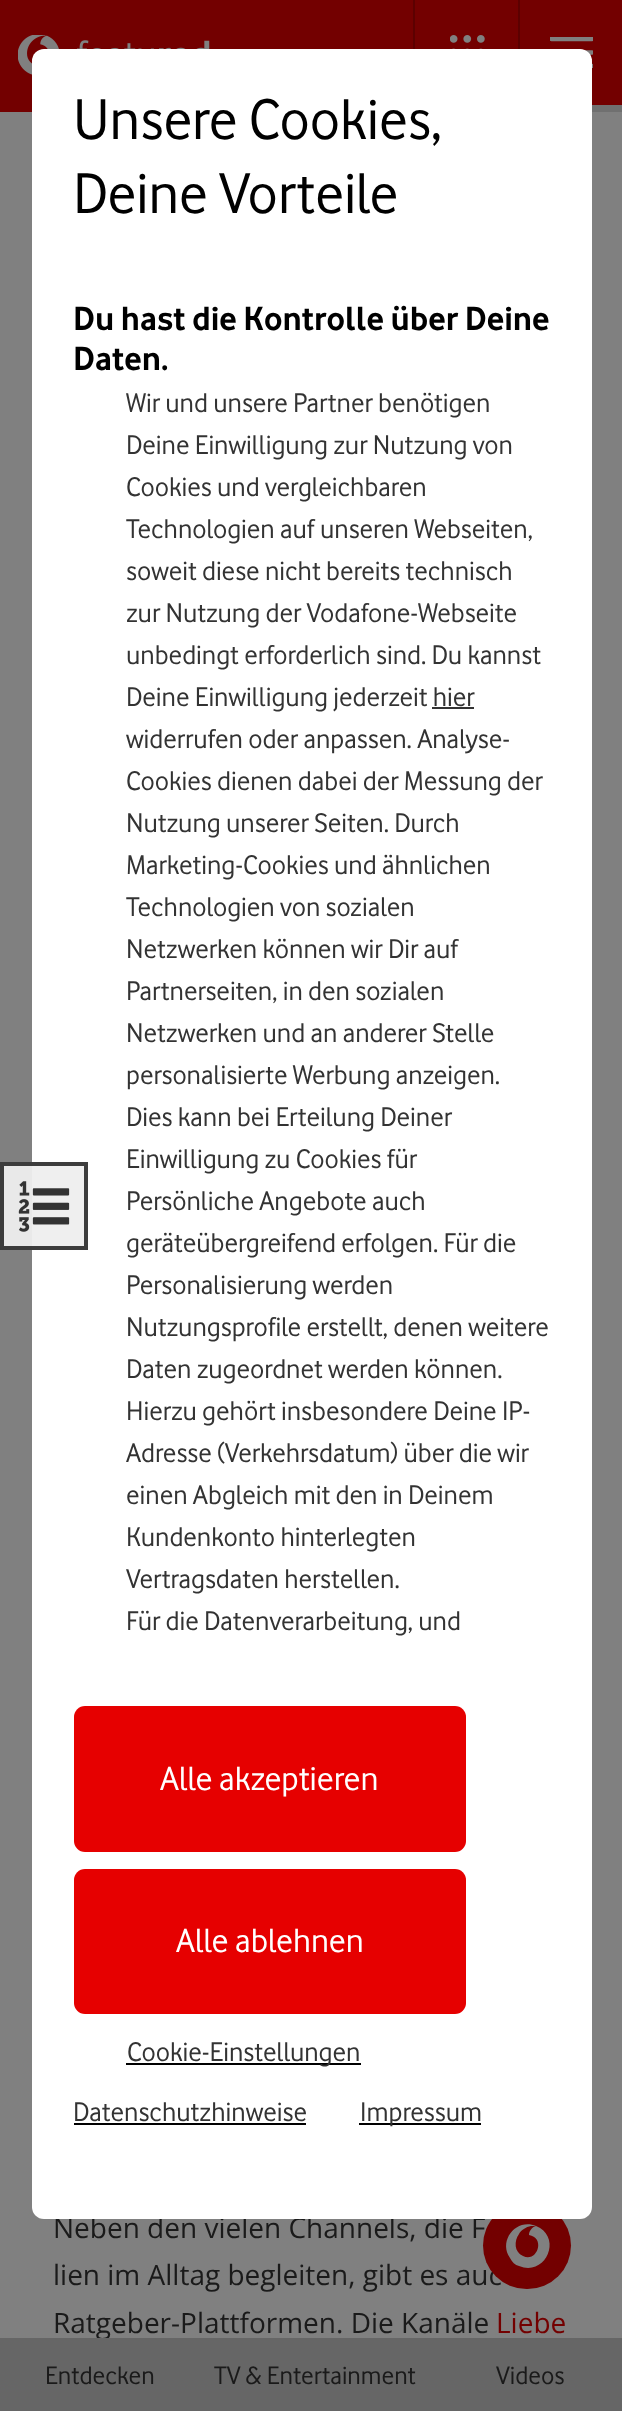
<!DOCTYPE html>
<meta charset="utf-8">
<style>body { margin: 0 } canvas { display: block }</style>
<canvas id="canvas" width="622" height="2411"></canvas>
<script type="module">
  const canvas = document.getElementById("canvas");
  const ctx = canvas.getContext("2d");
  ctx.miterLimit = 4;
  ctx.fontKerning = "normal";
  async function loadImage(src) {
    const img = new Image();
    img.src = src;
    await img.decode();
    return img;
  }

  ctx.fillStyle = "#808080";
  ctx.fillRect(0, 0, 622, 2411);
  ctx.font = "28px Open Sans";
  ctx.fillStyle = "#1a1a1a";
  ctx.fillText("Neben den vielen Channels, die F", 53, 2238);
  ctx.fillText("lien im Alltag begleiten, gibt es auc", 53, 2285);
  ctx.fillStyle = "#730000";
  ctx.beginPath();
  ctx.roundRect(483, 2202, 88, 87, 43.5);
  ctx.fill();
  ctx.fillRect(0, 0, 622, 105);
  ctx.drawImage(await loadImage("img2.png"), 18, 35, 192, 40);
  ctx.save();
  ctx.beginPath();
  ctx.rect(550, 37, 43, 31);
  ctx.clip();
  ctx.beginPath();
  ctx.moveTo(551.5, 52.5);
  ctx.lineTo(592, 52.5);
  ctx.moveTo(551.5, 39);
  ctx.lineTo(592, 39);
  ctx.moveTo(551.5, 66);
  ctx.lineTo(592, 66);
  ctx.strokeStyle = "#808080";
  ctx.lineWidth = 4.5;
  ctx.lineCap = "round";
  ctx.lineJoin = "round";
  ctx.stroke();
  ctx.restore();
  ctx.fillStyle = "#ffffff";
  ctx.beginPath();
  ctx.roundRect(32, 49, 560, 2170, 12);
  ctx.fill();
  ctx.fillStyle = "rgba(238, 238, 238, 0.95)";
  ctx.fillRect(0, 1162, 88, 88);
  ctx.strokeStyle = "rgba(51, 51, 51, 0.95)";
  ctx.lineWidth = 4;
  ctx.strokeRect(2, 1164, 84, 84);
  ctx.drawImage(await loadImage("img1.png"), 18, 1181, 52, 51);
  ctx.font = "59.5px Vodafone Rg";
  ctx.fillStyle = "#000000";
  ctx.fillText("Unsere Cookies,", 73, 139);
  ctx.fillText("Deine Vorteile", 73, 213);
  ctx.font = "bold 35px Vodafone Rg";
  ctx.fillText("Du hast die Kontrolle über Deine", 73, 330);
  ctx.fillText("Daten.", 73, 370);
  ctx.font = "28px Vodafone Rg";
  ctx.fillStyle = "#333333";
  ctx.fillText("Wir und unsere Partner benötigen", 126, 412);
  ctx.fillText("Deine Einwilligung zur Nutzung von", 126, 454);
  ctx.fillText("Cookies und vergleichbaren", 126, 496);
  ctx.fillText("Technologien auf unseren Webseiten,", 126, 538);
  ctx.fillText("soweit diese nicht bereits technisch", 126, 580);
  ctx.fillText("zur Nutzung der Vodafone-Webseite", 126, 622);
  ctx.fillText("unbedingt erforderlich sind. Du kannst", 126, 664);
  ctx.fillText("Deine Einwilligung jederzeit hier", 126, 706);
  ctx.fillRect(432, 707, 42, 2);
  ctx.fillText("widerrufen oder anpassen. Analyse-", 126, 748);
  ctx.fillText("Cookies dienen dabei der Messung der", 126, 790);
  ctx.fillText("Nutzung unserer Seiten. Durch", 126, 832);
  ctx.fillText("Marketing-Cookies und ähnlichen", 126, 874);
  ctx.fillText("Technologien von sozialen", 126, 916);
  ctx.fillText("Netzwerken können wir Dir auf", 126, 958);
  ctx.fillText("Partnerseiten, in den sozialen", 126, 1000);
  ctx.fillText("Netzwerken und an anderer Stelle", 126, 1042);
  ctx.fillText("personalisierte Werbung anzeigen.", 126, 1084);
  ctx.fillText("Dies kann bei Erteilung Deiner", 126, 1126);
  ctx.fillText("Einwilligung zu Cookies für", 126, 1168);
  ctx.fillText("Persönliche Angebote auch", 126, 1210);
  ctx.fillText("geräteübergreifend erfolgen. Für die", 126, 1252);
  ctx.fillText("Personalisierung werden", 126, 1294);
  ctx.fillText("Nutzungsprofile erstellt, denen weitere", 126, 1336);
  ctx.fillText("Daten zugeordnet werden können.", 126, 1378);
  ctx.fillText("Hierzu gehört insbesondere Deine IP-", 126, 1420);
  ctx.fillText("Adresse (Verkehrsdatum) über die wir", 126, 1462);
  ctx.fillText("einen Abgleich mit den in Deinem", 126, 1504);
  ctx.fillText("Kundenkonto hinterlegten", 126, 1546);
  ctx.fillText("Vertragsdaten herstellen. ", 126, 1588);
  ctx.fillText("Für die Datenverarbeitung, und", 126, 1630);
  ctx.fillStyle = "#e60000";
  ctx.beginPath();
  ctx.roundRect(74, 1706, 392, 146, 11);
  ctx.fill();
  ctx.font = "35px Vodafone Rg";
  ctx.fillStyle = "#ffffff";
  ctx.fillText("Alle akzeptieren", 160, 1790);
  ctx.fillStyle = "#e60000";
  ctx.beginPath();
  ctx.roundRect(74, 1869, 392, 145, 11);
  ctx.fill();
  ctx.fillStyle = "#ffffff";
  ctx.fillText("Alle ablehnen", 176, 1952);
  ctx.fillStyle = "#000000";
  ctx.fillRect(126, 2063, 235, 2);
  ctx.font = "28px Vodafone Rg";
  ctx.fillStyle = "#333333";
  ctx.fillText("Cookie-Einstellungen", 127, 2061);
  ctx.fillText("Datenschutzhinweise", 73, 2121);
  ctx.fillStyle = "#000000";
  ctx.fillRect(74, 2123, 232, 2);
  ctx.fillRect(359, 2123, 122, 2);
  ctx.fillStyle = "#333333";
  ctx.fillText("Impressum", 360, 2121);
  ctx.fillStyle = "#808080";
  ctx.beginPath();
  ctx.moveTo(536, 2226);
  ctx.bezierCurveTo(532, 2227, 529, 2231, 529, 2235);
  ctx.bezierCurveTo(546, 2238, 537, 2263, 523, 2256);
  ctx.bezierCurveTo(514, 2252, 514, 2241, 519, 2234);
  ctx.bezierCurveTo(521, 2230, 526, 2227, 531, 2226);
  ctx.lineTo(536, 2226);
  ctx.bezierCurveTo(516, 2218, 498, 2241, 510, 2258);
  ctx.bezierCurveTo(512, 2262, 515, 2265, 519, 2266);
  ctx.bezierCurveTo(546, 2277, 563, 2237, 536, 2226);
  ctx.fill("evenodd");
  ctx.fillStyle = "#707070";
  ctx.fillRect(592, 105, 30, 7);
  ctx.fillStyle = "#730000";
  ctx.fillRect(0, 105, 32, 7);
  ctx.font = "28px Open Sans";
  ctx.fillStyle = "#1a1a1a";
  ctx.fillText("Ratgeber-Plattformen. Die Kanäle", 53, 2333);
  ctx.fillStyle = "#730000";
  ctx.fillText("Liebe", 496, 2333);
  ctx.drawImage(await loadImage("img3.png"), 450, 35, 35, 14);
  ctx.fillStyle = "#5c0000";
  ctx.fillRect(413, 0, 2, 49);
  ctx.fillRect(518, 0, 2, 49);
  ctx.fillStyle = "#666666";
  ctx.fillRect(0, 2338, 622, 73);
  ctx.font = "26.25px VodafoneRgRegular";
  ctx.fillStyle = "#1a1a1a";
  ctx.fillText("Entdecken", 45, 2384);
  ctx.fillText("TV & Entertainment", 214, 2384);
  ctx.fillText("Videos", 496, 2384);
</script>
